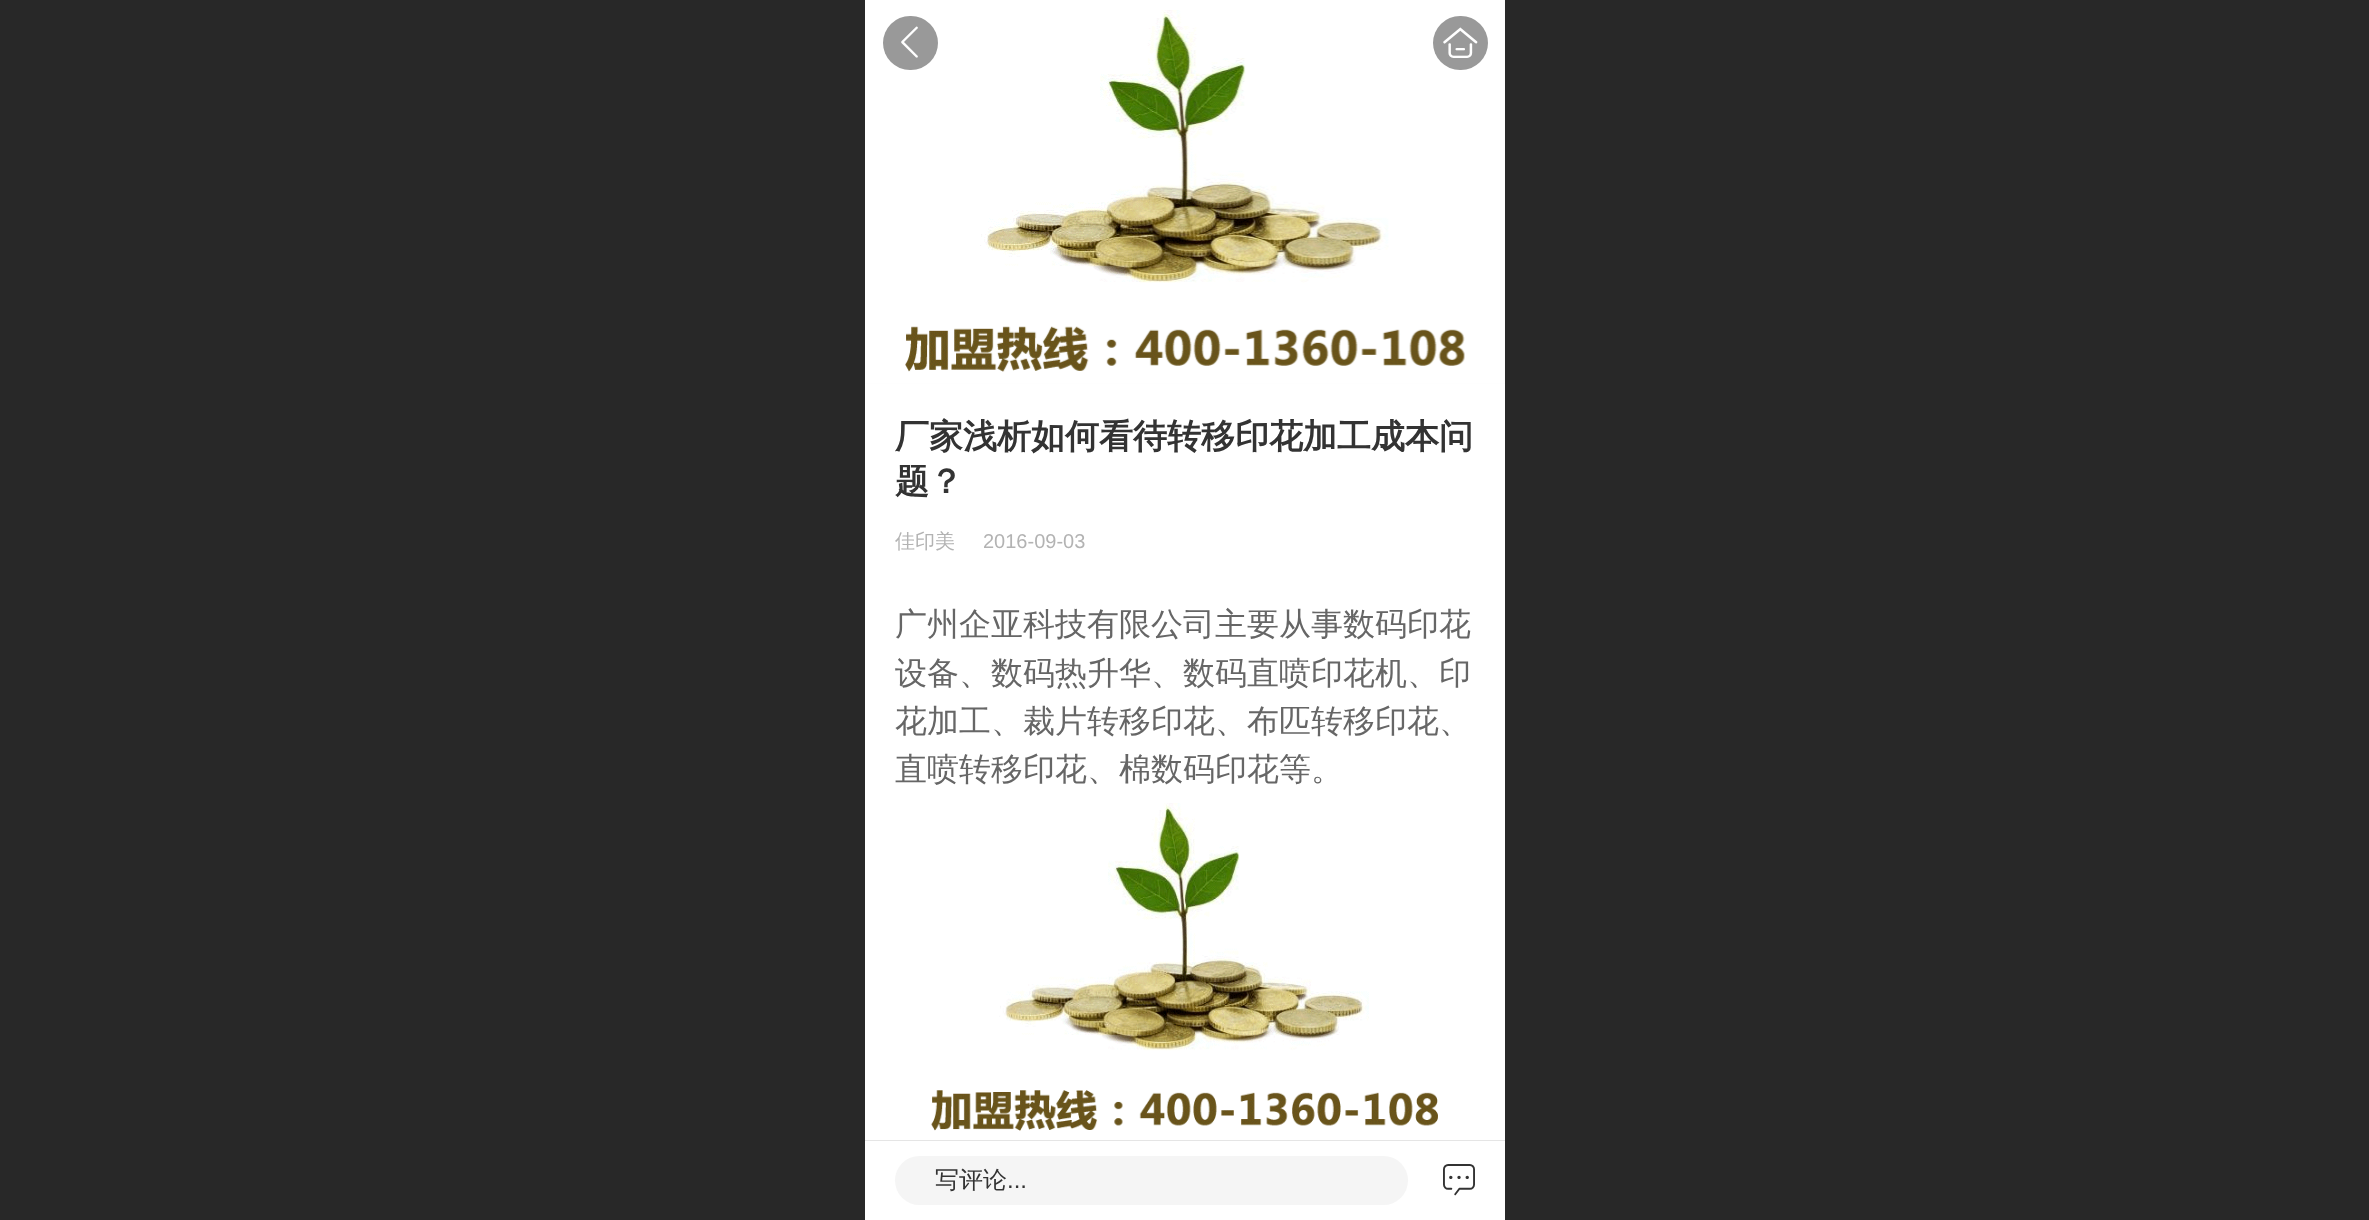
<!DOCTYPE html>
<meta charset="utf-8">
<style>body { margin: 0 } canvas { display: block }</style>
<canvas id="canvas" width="2369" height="1220"></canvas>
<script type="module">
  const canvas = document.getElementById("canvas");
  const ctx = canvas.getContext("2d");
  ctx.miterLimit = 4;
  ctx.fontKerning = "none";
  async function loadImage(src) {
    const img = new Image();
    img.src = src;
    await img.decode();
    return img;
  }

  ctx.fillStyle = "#ffffff";
  ctx.fillRect(0, 0, 2369, 1220);
  ctx.fillStyle = "#282828";
  ctx.fillRect(0, 0, 865, 1220);
  ctx.fillStyle = "#f6f6f6";
  ctx.fillRect(865, 0, 640, 384);
  ctx.drawImage(await loadImage("img1.png"), 865, 0, 640, 384);
  ctx.fillStyle = "#999999";
  ctx.beginPath();
  ctx.roundRect(883, 16, 55, 54, 27);
  ctx.fill();
  ctx.font = "31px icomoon";
  ctx.fillStyle = "#ffffff";
  ctx.fillText("򰊔", 894, 55);
  ctx.fillStyle = "#999999";
  ctx.beginPath();
  ctx.roundRect(1433, 16, 55, 54, 27);
  ctx.fill();
  ctx.font = "34px icomoon";
  ctx.fillStyle = "#ffffff";
  ctx.fillText("򰌓", 1443, 57);
  ctx.font = "bold 34px WenQuanYi Zen Hei";
  ctx.fillStyle = "#333333";
  ctx.fillText("厂家浅析如何看待转移印花加工成本问", 895, 448);
  ctx.fillText("题？", 895, 493);
  ctx.font = "500 20px WenQuanYi Zen Hei";
  ctx.fillStyle = "#b3b3b3";
  ctx.fillText("佳印美", 895, 548);
  ctx.font = "20px Liberation Sans";
  ctx.fillText("2016-09-03", 983, 548);
  ctx.font = "500 32px WenQuanYi Zen Hei";
  ctx.fillStyle = "#666666";
  ctx.fillText("广州企亚科技有限公司主要从事数码印花", 895, 635);
  ctx.fillText("设备、数码热升华、数码直喷印花机、印", 895, 684);
  ctx.fillText("花加工、裁片转移印花、布匹转移印花、", 895, 732);
  ctx.fillText("直喷转移印花、棉数码印花等。", 895, 780);
  ctx.drawImage(await loadImage("img2.png"), 931, 803, 507, 328);
  ctx.fillStyle = "#e5e5e5";
  ctx.fillRect(865, 1140, 640, 1);
  ctx.fillStyle = "#f5f5f5";
  ctx.beginPath();
  ctx.roundRect(895, 1156, 513, 49, 24.5);
  ctx.fill();
  ctx.font = "500 24px WenQuanYi Zen Hei";
  ctx.fillStyle = "#333333";
  ctx.fillText("写评论", 935, 1188);
  ctx.font = "24px Liberation Sans";
  ctx.fillText("...", 1007, 1188);
  ctx.font = "32px icomoon";
  ctx.fillText("򰌇", 1443, 1193);
  ctx.fillStyle = "#282828";
  ctx.fillRect(1505, 0, 864, 1220);
</script>
